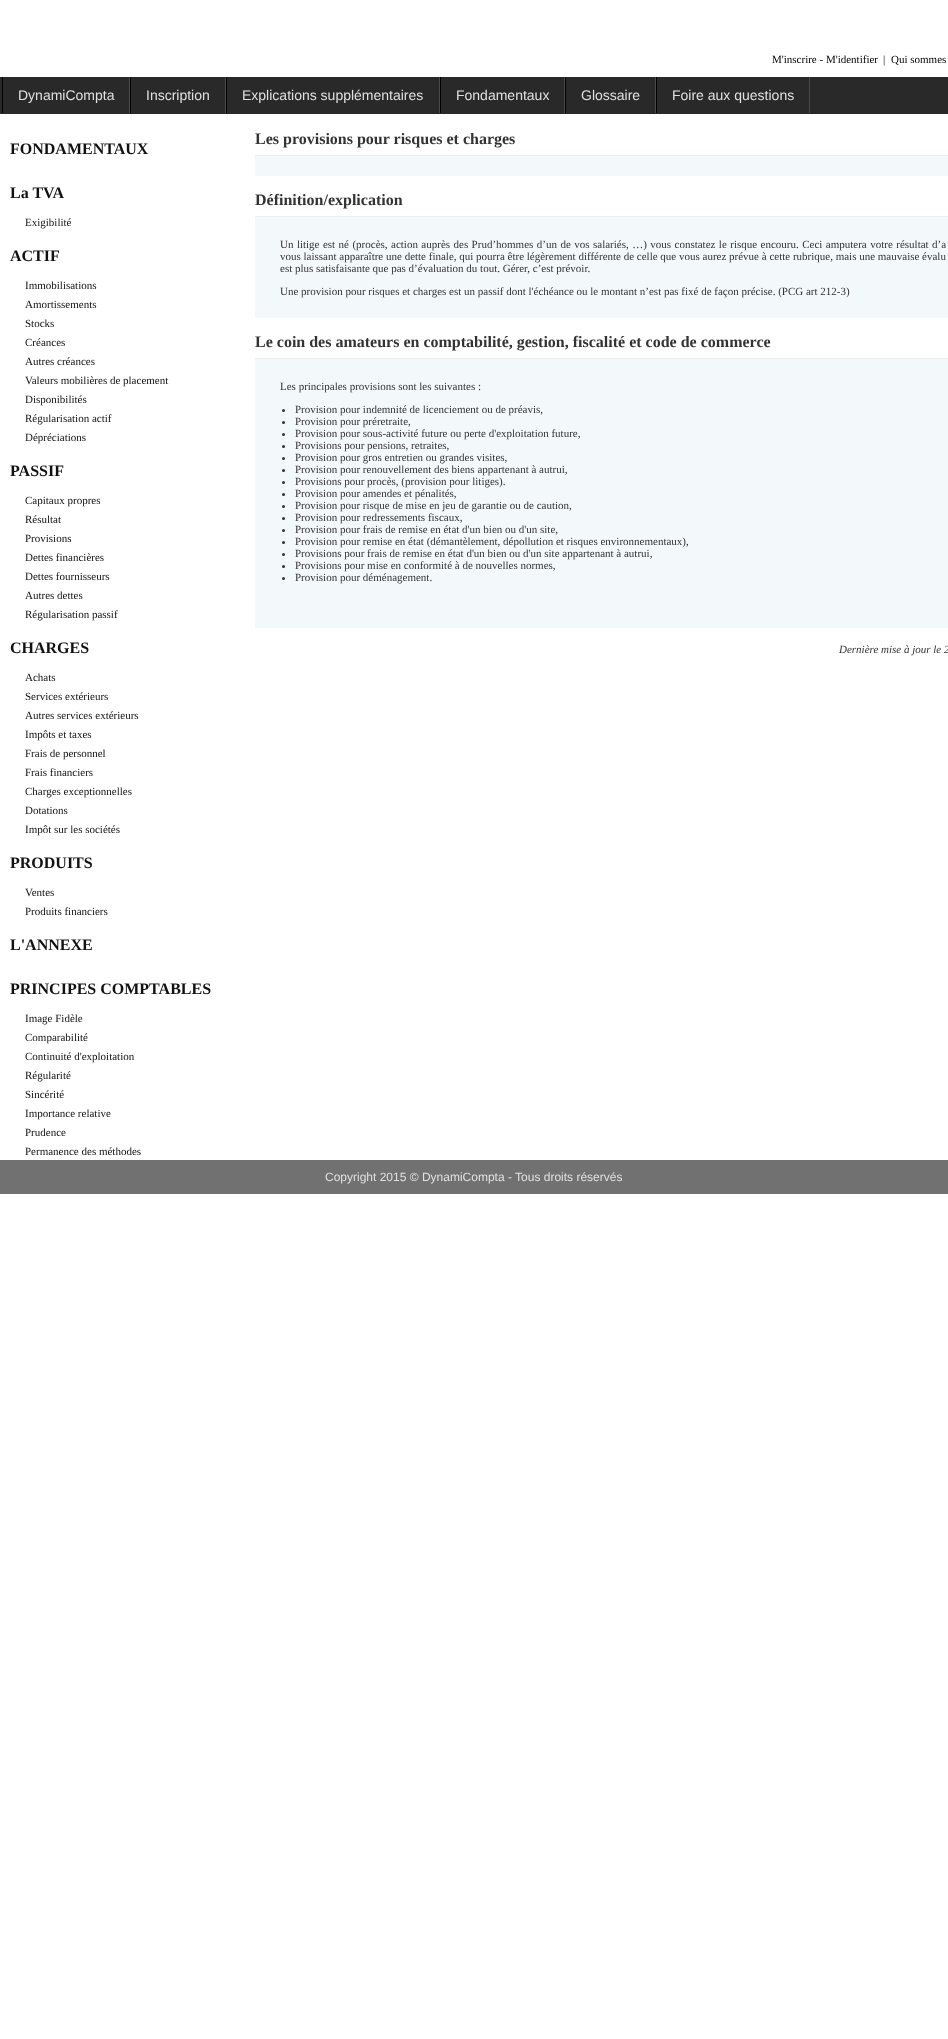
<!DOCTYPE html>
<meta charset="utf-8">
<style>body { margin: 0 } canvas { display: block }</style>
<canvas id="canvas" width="948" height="2039"></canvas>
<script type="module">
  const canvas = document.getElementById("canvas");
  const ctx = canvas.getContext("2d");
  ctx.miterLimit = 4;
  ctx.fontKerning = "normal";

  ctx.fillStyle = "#ffffff";
  ctx.fillRect(0, 0, 948, 2039);
  ctx.font = "11px Liberation Serif";
  ctx.fillStyle = "#000000";
  ctx.fillText("M'inscrire - M'identifier", 772, 63);
  ctx.fillText("|", 883, 63);
  ctx.fillText("Qui sommes", 891, 63);
  ctx.fillStyle = "#292929";
  ctx.fillRect(0, 77, 948, 37);
  ctx.fillStyle = "#4a4a4a";
  ctx.fillRect(129, 77, 1, 36);
  ctx.fillStyle = "#000000";
  ctx.fillRect(2, 77, 1, 36);
  ctx.font = "14px Liberation Sans";
  ctx.fillStyle = "#e0e0e0";
  ctx.fillText("DynamiCompta", 18, 100);
  ctx.fillStyle = "#4a4a4a";
  ctx.fillRect(225, 77, 1, 36);
  ctx.fillStyle = "#000000";
  ctx.fillRect(130, 77, 1, 36);
  ctx.fillStyle = "#e0e0e0";
  ctx.fillText("Inscription", 146, 100);
  ctx.fillStyle = "#4a4a4a";
  ctx.fillRect(439, 77, 1, 36);
  ctx.fillStyle = "#000000";
  ctx.fillRect(226, 77, 1, 36);
  ctx.fillStyle = "#e0e0e0";
  ctx.fillText("Explications supplémentaires", 242, 100);
  ctx.fillStyle = "#4a4a4a";
  ctx.fillRect(564, 77, 1, 36);
  ctx.fillStyle = "#000000";
  ctx.fillRect(440, 77, 1, 36);
  ctx.fillStyle = "#e0e0e0";
  ctx.fillText("Fondamentaux", 456, 100);
  ctx.fillStyle = "#4a4a4a";
  ctx.fillRect(655, 77, 1, 36);
  ctx.fillStyle = "#000000";
  ctx.fillRect(565, 77, 1, 36);
  ctx.fillStyle = "#e0e0e0";
  ctx.fillText("Glossaire", 581, 100);
  ctx.fillStyle = "#4a4a4a";
  ctx.fillRect(809, 77, 1, 36);
  ctx.fillStyle = "#000000";
  ctx.fillRect(656, 77, 1, 36);
  ctx.fillStyle = "#e0e0e0";
  ctx.fillText("Foire aux questions", 672, 100);
  ctx.font = "bold 16px Liberation Serif";
  ctx.fillStyle = "#111111";
  ctx.fillText("FONDAMENTAUX", 10, 154);
  ctx.fillText("La TVA", 10, 198);
  ctx.font = "11px Liberation Serif";
  ctx.fillText("Exigibilité", 25, 226);
  ctx.font = "bold 16px Liberation Serif";
  ctx.fillText("ACTIF", 10, 261);
  ctx.font = "11px Liberation Serif";
  ctx.fillText("Immobilisations", 25, 289);
  ctx.fillText("Amortissements", 25, 308);
  ctx.fillText("Stocks", 25, 327);
  ctx.fillText("Créances", 25, 346);
  ctx.fillText("Autres créances", 25, 365);
  ctx.fillText("Valeurs mobilières de placement", 25, 384);
  ctx.fillText("Disponibilités", 25, 403);
  ctx.fillText("Régularisation actif", 25, 422);
  ctx.fillText("Dépréciations", 25, 441);
  ctx.font = "bold 16px Liberation Serif";
  ctx.fillText("PASSIF", 10, 476);
  ctx.font = "11px Liberation Serif";
  ctx.fillText("Capitaux propres", 25, 504);
  ctx.fillText("Résultat", 25, 523);
  ctx.fillText("Provisions", 25, 542);
  ctx.fillText("Dettes financières", 25, 561);
  ctx.fillText("Dettes fournisseurs", 25, 580);
  ctx.fillText("Autres dettes", 25, 599);
  ctx.fillText("Régularisation passif", 25, 618);
  ctx.font = "bold 16px Liberation Serif";
  ctx.fillText("CHARGES", 10, 653);
  ctx.font = "11px Liberation Serif";
  ctx.fillText("Achats", 25, 681);
  ctx.fillText("Services extérieurs", 25, 700);
  ctx.fillText("Autres services extérieurs", 25, 719);
  ctx.fillText("Impôts et taxes", 25, 738);
  ctx.fillText("Frais de personnel", 25, 757);
  ctx.fillText("Frais financiers", 25, 776);
  ctx.fillText("Charges exceptionnelles", 25, 795);
  ctx.fillText("Dotations", 25, 814);
  ctx.fillText("Impôt sur les sociétés", 25, 833);
  ctx.font = "bold 16px Liberation Serif";
  ctx.fillText("PRODUITS", 10, 868);
  ctx.font = "11px Liberation Serif";
  ctx.fillText("Ventes", 25, 896);
  ctx.fillText("Produits financiers", 25, 915);
  ctx.font = "bold 16px Liberation Serif";
  ctx.fillText("L'ANNEXE", 10, 950);
  ctx.fillText("PRINCIPES COMPTABLES", 10, 994);
  ctx.font = "11px Liberation Serif";
  ctx.fillText("Image Fidèle", 25, 1022);
  ctx.fillText("Comparabilité", 25, 1041);
  ctx.fillText("Continuité d'exploitation", 25, 1060);
  ctx.fillText("Régularité", 25, 1079);
  ctx.fillText("Sincérité", 25, 1098);
  ctx.fillText("Importance relative", 25, 1117);
  ctx.fillText("Prudence", 25, 1136);
  ctx.fillText("Permanence des méthodes", 25, 1155);
  ctx.fillStyle = "#eeeeee";
  ctx.fillRect(255, 155, 693, 1);
  ctx.font = "bold 16px Liberation Serif";
  ctx.fillStyle = "#333333";
  ctx.fillText("Les provisions pour risques et charges", 255, 144);
  ctx.fillStyle = "#f3f8fb";
  ctx.fillRect(255, 156, 693, 20);
  ctx.fillStyle = "#eeeeee";
  ctx.fillRect(255, 216, 693, 1);
  ctx.fillStyle = "#333333";
  ctx.fillText("Définition/explication", 255, 205);
  ctx.fillStyle = "#f3f8fb";
  ctx.fillRect(255, 217, 693, 101);
  ctx.wordSpacing = "0.7px";
  ctx.font = "11px Liberation Serif";
  ctx.fillStyle = "#333333";
  ctx.fillText("Un litige est né (procès, action auprès des Prud’hommes d’un de vos salariés, …) vous constatez le risque encouru. Ceci amputera votre résultat d’a", 280, 248);
  ctx.wordSpacing = "0px";
  ctx.fillText("vous laissant apparaître une dette finale, qui pourra être légèrement différente de celle que vous aurez prévue à cette rubrique, mais une mauvaise évalu", 280, 260);
  ctx.fillText("est plus satisfaisante que pas d’évaluation du tout. Gérer, c’est prévoir.", 280, 272);
  ctx.fillText("Une provision pour risques et charges est un passif dont l'échéance ou le montant n’est pas fixé de façon précise. (PCG art 212-3)", 280, 295);
  ctx.fillStyle = "#eeeeee";
  ctx.fillRect(255, 358, 693, 1);
  ctx.font = "bold 16px Liberation Serif";
  ctx.fillStyle = "#333333";
  ctx.fillText("Le coin des amateurs en comptabilité, gestion, fiscalité et code de commerce", 255, 347);
  ctx.fillStyle = "#f3f8fb";
  ctx.fillRect(255, 359, 693, 269);
  ctx.font = "11px Liberation Serif";
  ctx.fillStyle = "#333333";
  ctx.fillText("Les principales provisions sont les suivantes :", 280, 390);
  ctx.beginPath();
  ctx.arc(283.5, 410.5, 1.5, 0, Math.PI * 2);
  ctx.fill();
  ctx.fillText("Provision pour indemnité de licenciement ou de préavis,", 295, 413);
  ctx.beginPath();
  ctx.arc(283.5, 422.5, 1.5, 0, Math.PI * 2);
  ctx.fill();
  ctx.fillText("Provision pour préretraite,", 295, 425);
  ctx.beginPath();
  ctx.arc(283.5, 434.5, 1.5, 0, Math.PI * 2);
  ctx.fill();
  ctx.fillText("Provision pour sous-activité future ou perte d'exploitation future,", 295, 437);
  ctx.beginPath();
  ctx.arc(283.5, 446.5, 1.5, 0, Math.PI * 2);
  ctx.fill();
  ctx.fillText("Provisions pour pensions, retraites,", 295, 449);
  ctx.beginPath();
  ctx.arc(283.5, 458.5, 1.5, 0, Math.PI * 2);
  ctx.fill();
  ctx.fillText("Provision pour gros entretien ou grandes visites,", 295, 461);
  ctx.beginPath();
  ctx.arc(283.5, 470.5, 1.5, 0, Math.PI * 2);
  ctx.fill();
  ctx.fillText("Provision pour renouvellement des biens appartenant à autrui,", 295, 473);
  ctx.beginPath();
  ctx.arc(283.5, 482.5, 1.5, 0, Math.PI * 2);
  ctx.fill();
  ctx.fillText("Provisions pour procès, (provision pour litiges).", 295, 485);
  ctx.beginPath();
  ctx.arc(283.5, 494.5, 1.5, 0, Math.PI * 2);
  ctx.fill();
  ctx.fillText("Provision pour amendes et pénalités,", 295, 497);
  ctx.beginPath();
  ctx.arc(283.5, 506.5, 1.5, 0, Math.PI * 2);
  ctx.fill();
  ctx.fillText("Provision pour risque de mise en jeu de garantie ou de caution,", 295, 509);
  ctx.beginPath();
  ctx.arc(283.5, 518.5, 1.5, 0, Math.PI * 2);
  ctx.fill();
  ctx.fillText("Provision pour redressements fiscaux,", 295, 521);
  ctx.beginPath();
  ctx.arc(283.5, 530.5, 1.5, 0, Math.PI * 2);
  ctx.fill();
  ctx.fillText("Provision pour frais de remise en état d'un bien ou d'un site,", 295, 533);
  ctx.beginPath();
  ctx.arc(283.5, 542.5, 1.5, 0, Math.PI * 2);
  ctx.fill();
  ctx.fillText("Provision pour remise en état (démantèlement, dépollution et risques environnementaux),", 295, 545);
  ctx.beginPath();
  ctx.arc(283.5, 554.5, 1.5, 0, Math.PI * 2);
  ctx.fill();
  ctx.fillText("Provisions pour frais de remise en état d'un bien ou d'un site appartenant à autrui,", 295, 557);
  ctx.beginPath();
  ctx.arc(283.5, 566.5, 1.5, 0, Math.PI * 2);
  ctx.fill();
  ctx.fillText("Provisions pour mise en conformité à de nouvelles normes,", 295, 569);
  ctx.beginPath();
  ctx.arc(283.5, 578.5, 1.5, 0, Math.PI * 2);
  ctx.fill();
  ctx.fillText("Provision pour déménagement.", 295, 581);
  ctx.font = "italic 11px Liberation Serif";
  ctx.fillText("Dernière mise à jour le 2", 839, 653);
  ctx.fillStyle = "#717171";
  ctx.fillRect(0, 1160, 948, 34);
  ctx.font = "12px Liberation Sans";
  ctx.fillStyle = "#e0e0e0";
  ctx.fillText("Copyright 2015 © DynamiCompta - Tous droits réservés", 325, 1181);
</script>
